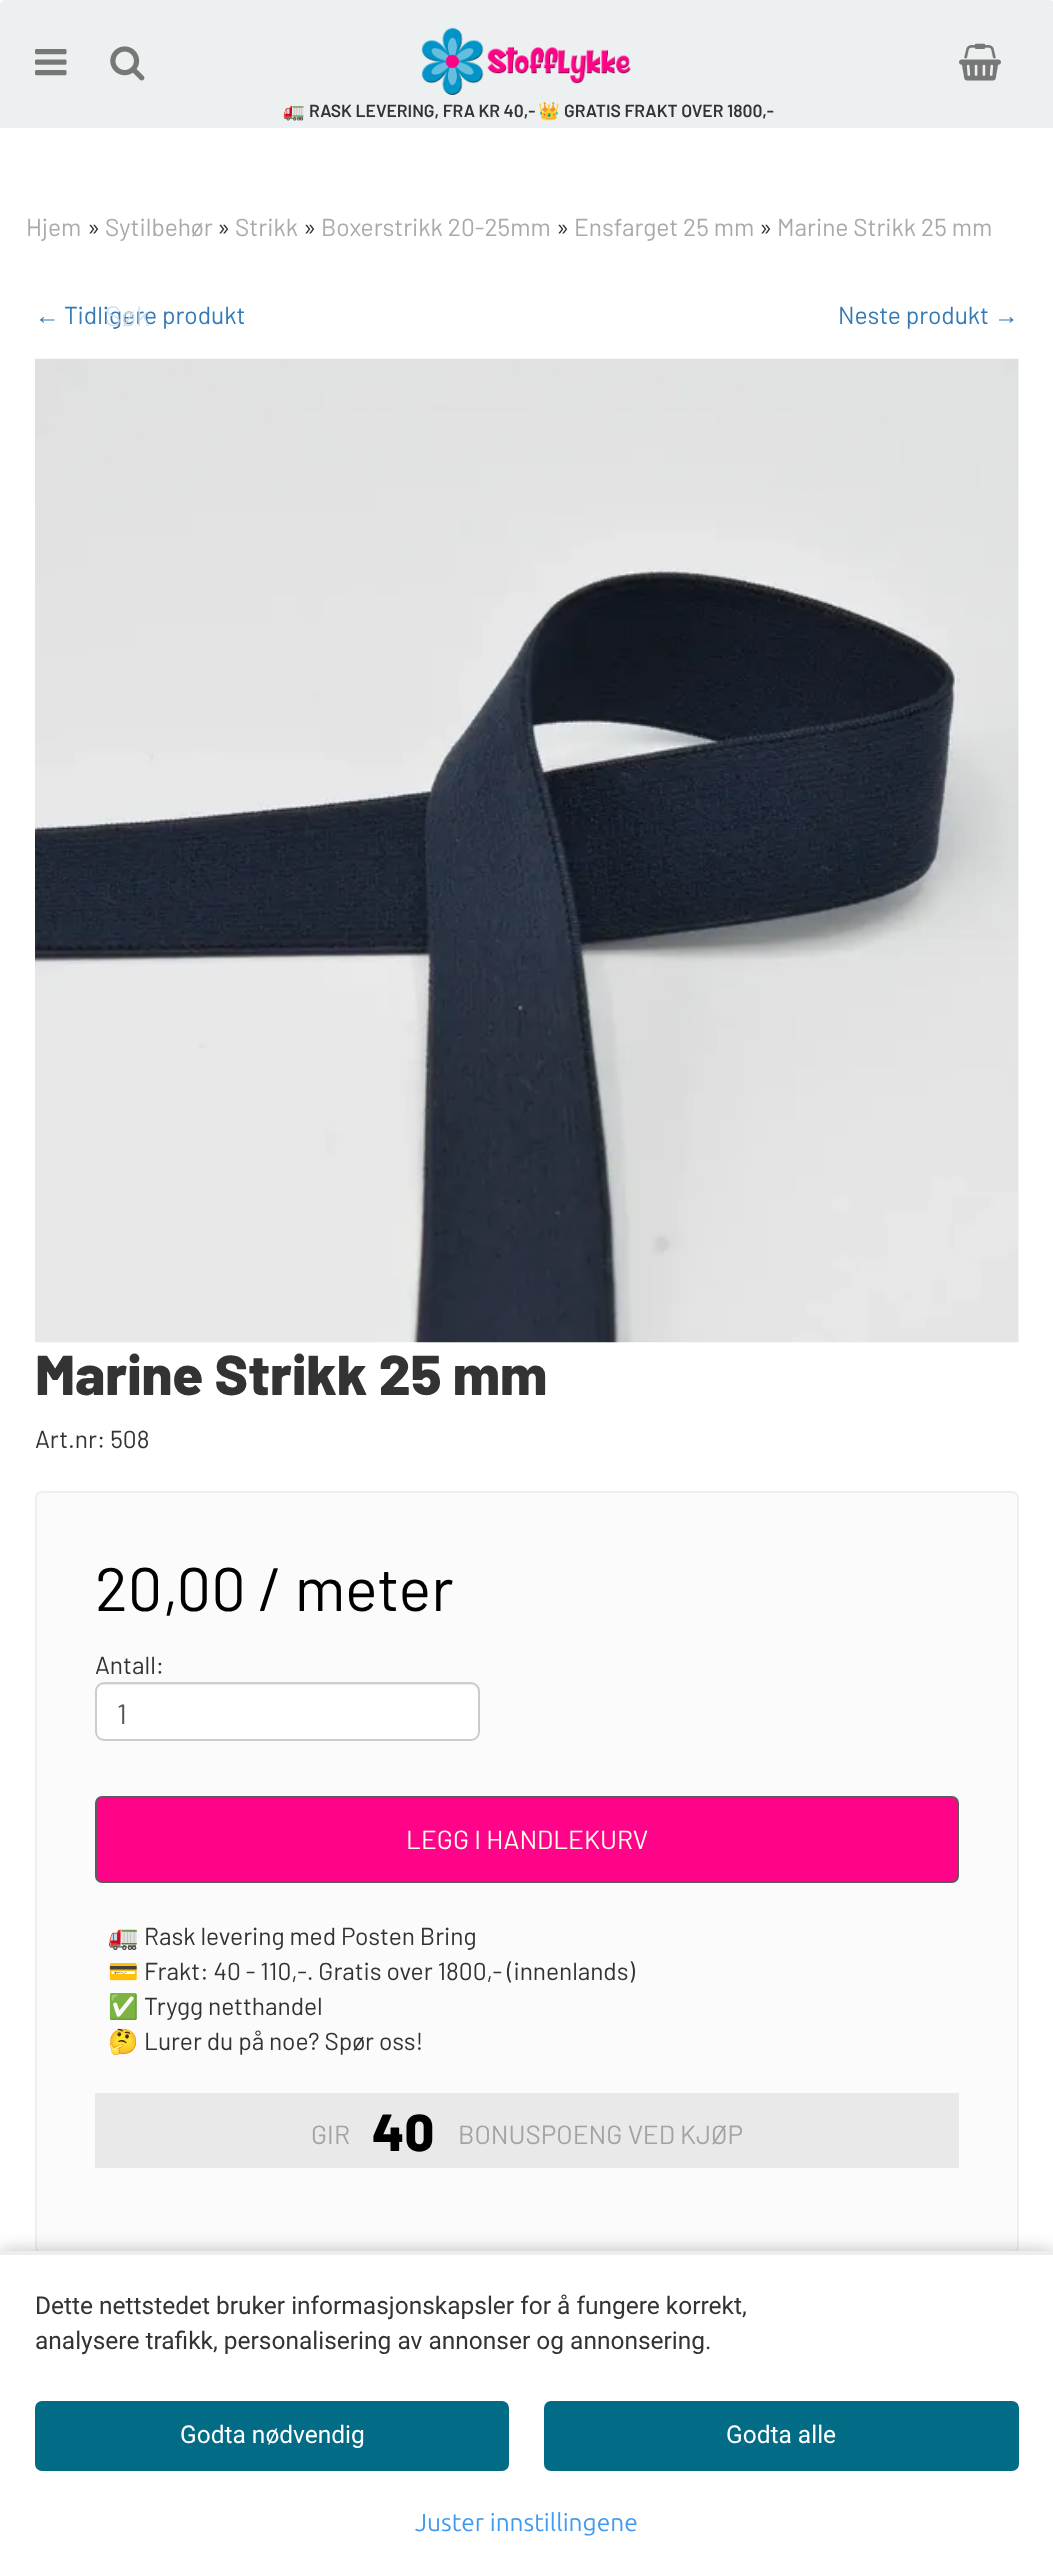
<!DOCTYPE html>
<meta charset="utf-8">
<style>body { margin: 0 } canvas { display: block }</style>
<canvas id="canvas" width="1053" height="2575"></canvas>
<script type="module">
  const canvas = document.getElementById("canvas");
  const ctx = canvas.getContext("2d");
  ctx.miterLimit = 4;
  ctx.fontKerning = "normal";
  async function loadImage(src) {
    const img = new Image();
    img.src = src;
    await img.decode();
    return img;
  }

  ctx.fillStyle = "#ffffff";
  ctx.fillRect(0, 0, 1053, 2575);
  ctx.fillStyle = "#ecf0f1";
  ctx.beginPath();
  ctx.moveTo(5, 0);
  ctx.lineTo(1049, 0);
  ctx.bezierCurveTo(1052, 0, 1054, 2, 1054, 5);
  ctx.lineTo(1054, 128);
  ctx.lineTo(0, 128);
  ctx.lineTo(0, 5);
  ctx.bezierCurveTo(0, 2, 2, 0, 5, 0);
  ctx.closePath();
  ctx.fill();
  ctx.drawImage(await loadImage("img1.png"), 35, 49, 32, 27);
  ctx.drawImage(await loadImage("img2.png"), 110, 46, 35, 35);
  ctx.drawImage(await loadImage("img3.png"), 421, 27, 210, 68);
  ctx.drawImage(await loadImage("img4.png"), 959, 43, 42, 38);
  ctx.font = "bold 17.5px Noto Color Emoji";
  ctx.fillStyle = "#333333";
  ctx.fillText("🚛", 283, 117);
  ctx.font = "600 17.5px Barlow";
  ctx.fillText("RASK LEVERING, FRA KR 40,-", 309, 117);
  ctx.font = "bold 17.5px Noto Color Emoji";
  ctx.fillText("👑", 538, 117);
  ctx.font = "600 17.5px Barlow";
  ctx.fillText("GRATIS FRAKT OVER 1800,-", 564, 117);
  ctx.font = "24.5px Barlow";
  ctx.fillStyle = "#aaaaaa";
  ctx.fillText("Hjem", 26, 236);
  ctx.fillStyle = "#333333";
  ctx.fillText("»", 87, 236);
  ctx.fillStyle = "#aaaaaa";
  ctx.fillText("Sytilbehør", 105, 236);
  ctx.fillStyle = "#333333";
  ctx.fillText("»", 217, 236);
  ctx.fillStyle = "#aaaaaa";
  ctx.fillText("Strikk", 235, 236);
  ctx.fillStyle = "#333333";
  ctx.fillText("»", 303, 236);
  ctx.fillStyle = "#aaaaaa";
  ctx.fillText("Boxerstrikk 20-25mm", 321, 236);
  ctx.fillStyle = "#333333";
  ctx.fillText("»", 556, 236);
  ctx.fillStyle = "#aaaaaa";
  ctx.fillText("Ensfarget 25 mm", 574, 236);
  ctx.fillStyle = "#333333";
  ctx.fillText("»", 759, 236);
  ctx.fillStyle = "#aaaaaa";
  ctx.fillText("Marine Strikk 25 mm", 777, 236);
  ctx.font = "24.5px Liberation Sans";
  ctx.fillStyle = "#337ab7";
  ctx.fillText("←", 35, 324);
  ctx.font = "24.5px Barlow";
  ctx.fillText("Tidligere produkt", 64, 324);
  ctx.fillText("Neste produkt", 838, 324);
  ctx.font = "24.5px Liberation Sans";
  ctx.fillText("→", 994, 324);
  ctx.drawImage(await loadImage("img5.png"), 35, 358, 984, 985);
  ctx.font = "800 56.25px Barlow";
  ctx.fillStyle = "#333333";
  ctx.fillText("Marine Strikk 25 mm", 35, 1395);
  ctx.font = "24.5px Barlow";
  ctx.fillText("Art.nr: 508", 35, 1448);
  ctx.fillStyle = "#fbfbfb";
  ctx.beginPath();
  ctx.roundRect(36, 1492, 982, 761, 6);
  ctx.fill();
  ctx.strokeStyle = "#efefef";
  ctx.lineWidth = 2;
  ctx.stroke();
  ctx.font = "61.25px Barlow";
  ctx.fillStyle = "#000000";
  ctx.fillText("20,00 / meter", 95, 1611);
  ctx.font = "24.5px Barlow";
  ctx.fillStyle = "#333333";
  ctx.fillText("Antall:", 95, 1674);
  ctx.fillStyle = "#ffffff";
  ctx.beginPath();
  ctx.roundRect(95, 1682, 385, 59, 9);
  ctx.fill();
  ctx.fillStyle = "#ececec";
  ctx.beginPath();
  ctx.moveTo(103, 1685);
  ctx.lineTo(471, 1685);
  ctx.bezierCurveTo(475, 1685, 478, 1688, 478, 1692);
  ctx.lineTo(478, 1691);
  ctx.bezierCurveTo(478, 1687, 475, 1684, 471, 1684);
  ctx.lineTo(103, 1684);
  ctx.bezierCurveTo(99, 1684, 96, 1687, 96, 1691);
  ctx.lineTo(96, 1692);
  ctx.bezierCurveTo(96, 1688, 99, 1685, 103, 1685);
  ctx.closePath();
  ctx.fill();
  ctx.beginPath();
  ctx.roundRect(96, 1683, 383, 57, 8);
  ctx.strokeStyle = "#cccccc";
  ctx.stroke();
  ctx.font = "28px Barlow";
  ctx.fillStyle = "#555555";
  ctx.fillText("1", 117, 1724);
  ctx.fillStyle = "#ff0489";
  ctx.beginPath();
  ctx.roundRect(96, 1797, 862, 85, 6);
  ctx.fill();
  ctx.strokeStyle = "#5c5c5c";
  ctx.stroke();
  ctx.font = "26.25px Barlow";
  ctx.fillStyle = "#ffffee";
  ctx.fillText("LEGG I HANDLEKURV", 406, 1849);
  ctx.font = "24.5px Noto Color Emoji";
  ctx.fillStyle = "#333333";
  ctx.fillText("🚛", 108, 1945);
  ctx.font = "24.5px Barlow";
  ctx.fillText("Rask levering med Posten Bring", 144, 1945);
  ctx.font = "24.5px Noto Color Emoji";
  ctx.fillText("💳", 108, 1980);
  ctx.font = "24.5px Barlow";
  ctx.fillText("Frakt: 40 - 110,-. Gratis over 1800,- (innenlands)", 144, 1980);
  ctx.font = "24.5px Noto Color Emoji";
  ctx.fillText("✅", 108, 2015);
  ctx.font = "24.5px Barlow";
  ctx.fillText("Trygg netthandel", 144, 2015);
  ctx.font = "24.5px Noto Color Emoji";
  ctx.fillText("🤔", 108, 2050);
  ctx.font = "24.5px Barlow";
  ctx.fillText("Lurer du på noe? Spør oss!", 144, 2050);
  ctx.fillStyle = "#e9e9e9";
  ctx.fillRect(95, 2093, 864, 75);
  ctx.font = "26.25px Barlow";
  ctx.fillStyle = "#a3a3a3";
  ctx.fillText("GIR", 311, 2144);
  ctx.font = "800 52px Barlow";
  ctx.fillStyle = "#000000";
  ctx.fillText("40", 372, 2151);
  ctx.font = "26.25px Barlow";
  ctx.fillStyle = "#a3a3a3";
  ctx.fillText("BONUSPOENG VED KJØP", 458, 2144);
  ctx.font = "300 28px Barlow";
  ctx.fillStyle = "#cddeed";
  ctx.fillText("Søk", 105, 326);
  ctx.fillStyle = "rgba(0, 0, 0, 0.25)";
  ctx.filter = "blur(9px)";
  ctx.beginPath();
  ctx.rect(0, 2251, 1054, 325);
  ctx.fill();
  ctx.filter = "none";
  ctx.fillStyle = "#ffffff";
  ctx.fillRect(0, 2255, 1053, 320);
  ctx.fillStyle = "#eeeeee";
  ctx.fillRect(0, 2251, 1053, 4);
  ctx.font = "24.5px Roboto";
  ctx.fillStyle = "#333333";
  ctx.fillText("Dette nettstedet bruker informasjonskapsler for å fungere korrekt,", 35, 2314);
  ctx.fillText("analysere trafikk, personalisering av annonser og annonsering.", 35, 2349);
  ctx.fillStyle = "#026b85";
  ctx.beginPath();
  ctx.roundRect(35, 2401, 474, 70, 7);
  ctx.fill();
  ctx.fillStyle = "#ffffff";
  ctx.fillText("Godta nødvendig", 180, 2443);
  ctx.fillStyle = "#026b85";
  ctx.beginPath();
  ctx.roundRect(544, 2401, 475, 70, 7);
  ctx.fill();
  ctx.fillStyle = "#ffffff";
  ctx.fillText("Godta alle", 726, 2443);
  ctx.font = "24.5px Ubuntu";
  ctx.fillStyle = "#409aef";
  ctx.fillText("Juster innstillingene", 415, 2531);
</script>
